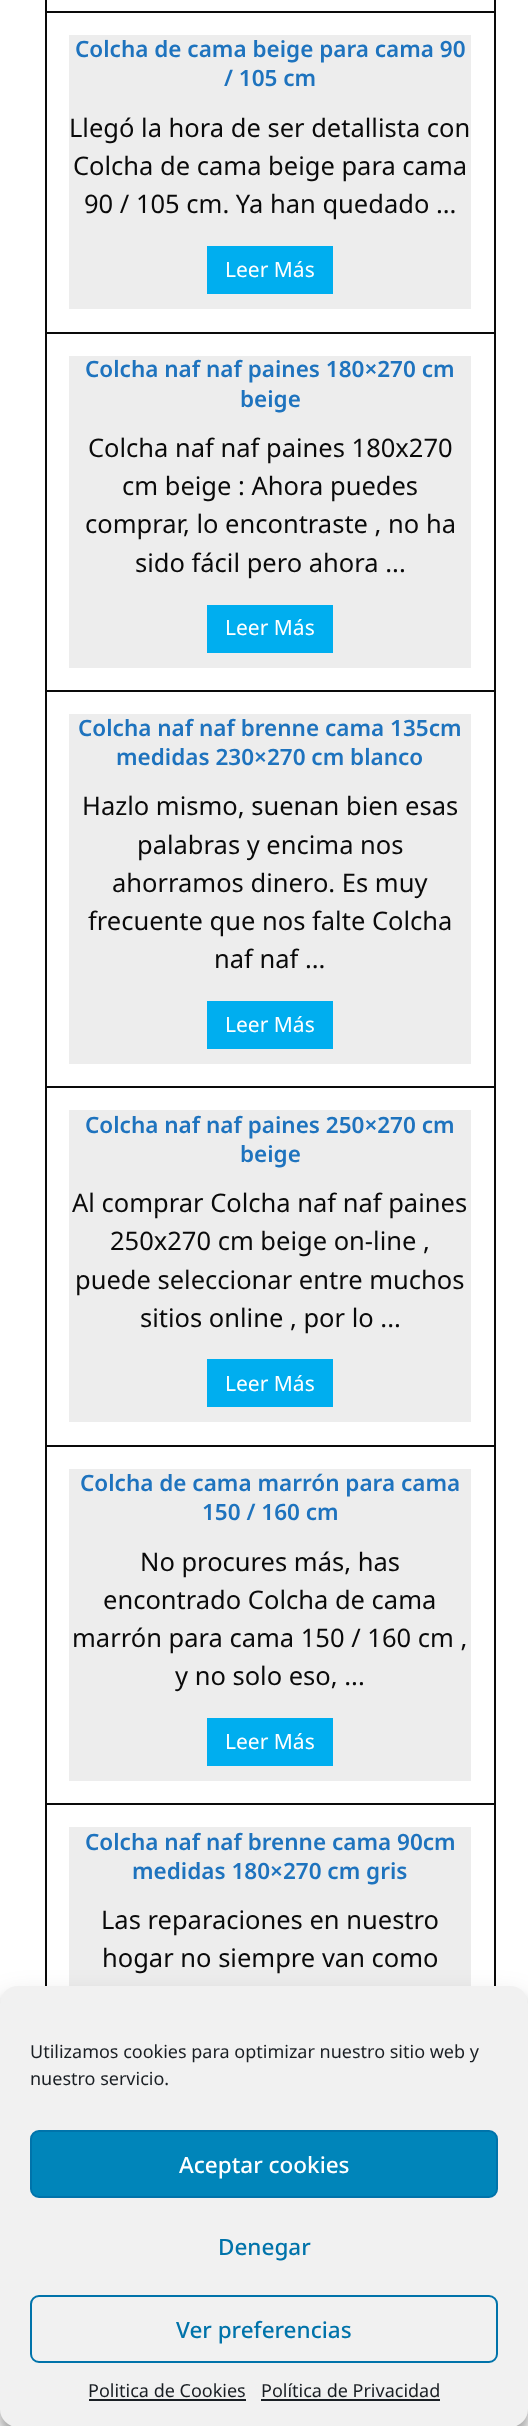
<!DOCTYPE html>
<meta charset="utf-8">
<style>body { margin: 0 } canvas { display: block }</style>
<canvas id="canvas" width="528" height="2426"></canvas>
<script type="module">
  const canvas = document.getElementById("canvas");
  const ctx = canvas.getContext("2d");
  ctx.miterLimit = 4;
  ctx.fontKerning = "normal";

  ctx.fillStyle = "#ffffff";
  ctx.fillRect(0, 0, 528, 2426);
  ctx.fillStyle = "#0a0a0a";
  ctx.fillRect(45, 0, 2, 1986);
  ctx.fillRect(494, 0, 2, 12);
  ctx.fillRect(47, 11, 448, 2);
  ctx.fillRect(494, 12, 2, 321);
  ctx.fillRect(47, 332, 448, 2);
  ctx.fillStyle = "#ededed";
  ctx.fillRect(69, 35, 402, 274);
  ctx.font = "600 22.5px Noto Sans";
  ctx.fillStyle = "#1e73be";
  ctx.fillText("Colcha de cama beige para cama 90", 75, 57);
  ctx.fillText("/ 105 cm", 224, 86);
  ctx.font = "25.5px Noto Sans";
  ctx.fillStyle = "#0a0a0a";
  ctx.fillText("Llegó la hora de ser detallista con", 69, 137);
  ctx.fillText("Colcha de cama beige para cama", 73, 175);
  ctx.fillText("90 / 105 cm. Ya han quedado ...", 84, 213);
  ctx.fillStyle = "#00aeef";
  ctx.fillRect(207, 246, 126, 48);
  ctx.font = "21px Noto Sans";
  ctx.fillStyle = "#ffffff";
  ctx.fillText("Leer Más", 225, 277);
  ctx.fillStyle = "#0a0a0a";
  ctx.fillRect(494, 333, 2, 1113);
  ctx.fillRect(47, 690, 448, 2);
  ctx.fillStyle = "#ededed";
  ctx.fillRect(69, 356, 402, 312);
  ctx.font = "600 22.5px Noto Sans";
  ctx.fillStyle = "#1e73be";
  ctx.fillText("Colcha naf naf paines 180×270 cm", 85, 377);
  ctx.fillText("beige", 240, 407);
  ctx.font = "25.5px Noto Sans";
  ctx.fillStyle = "#0a0a0a";
  ctx.fillText("Colcha naf naf paines 180x270", 88, 457);
  ctx.fillText("cm beige : Ahora puedes", 122, 495);
  ctx.fillText("comprar, lo encontraste , no ha", 85, 533);
  ctx.fillText("sido fácil pero ahora ...", 135, 572);
  ctx.fillStyle = "#00aeef";
  ctx.fillRect(207, 605, 126, 48);
  ctx.font = "21px Noto Sans";
  ctx.fillStyle = "#ffffff";
  ctx.fillText("Leer Más", 225, 635);
  ctx.fillStyle = "#0a0a0a";
  ctx.fillRect(47, 1086, 448, 2);
  ctx.fillStyle = "#ededed";
  ctx.fillRect(69, 714, 402, 350);
  ctx.font = "600 22.5px Noto Sans";
  ctx.fillStyle = "#1e73be";
  ctx.fillText("Colcha naf naf brenne cama 135cm", 78, 736);
  ctx.fillText("medidas 230×270 cm blanco", 116, 765);
  ctx.font = "25.5px Noto Sans";
  ctx.fillStyle = "#0a0a0a";
  ctx.fillText("Hazlo mismo, suenan bien esas", 82, 815);
  ctx.fillText("palabras y encima nos", 137, 854);
  ctx.fillText("ahorramos dinero. Es muy", 112, 892);
  ctx.fillText("frecuente que nos falte Colcha", 88, 930);
  ctx.fillText("naf naf ...", 214, 968);
  ctx.fillStyle = "#00aeef";
  ctx.fillRect(207, 1001, 126, 48);
  ctx.font = "21px Noto Sans";
  ctx.fillStyle = "#ffffff";
  ctx.fillText("Leer Más", 225, 1032);
  ctx.fillStyle = "#0a0a0a";
  ctx.fillRect(47, 1445, 448, 2);
  ctx.fillStyle = "#ededed";
  ctx.fillRect(69, 1110, 402, 312);
  ctx.font = "600 22.5px Noto Sans";
  ctx.fillStyle = "#1e73be";
  ctx.fillText("Colcha naf naf paines 250×270 cm", 85, 1133);
  ctx.fillText("beige", 240, 1162);
  ctx.font = "25.5px Noto Sans";
  ctx.fillStyle = "#0a0a0a";
  ctx.fillText("Al comprar Colcha naf naf paines", 72, 1212);
  ctx.fillText("250x270 cm beige on-line ,", 110, 1250);
  ctx.fillText("puede seleccionar entre muchos", 75, 1289);
  ctx.fillText("sitios online , por lo ...", 140, 1327);
  ctx.fillStyle = "#00aeef";
  ctx.fillRect(207, 1359, 126, 48);
  ctx.font = "21px Noto Sans";
  ctx.fillStyle = "#ffffff";
  ctx.fillText("Leer Más", 225, 1391);
  ctx.fillStyle = "#0a0a0a";
  ctx.fillRect(494, 1446, 2, 540);
  ctx.fillRect(47, 1803, 448, 2);
  ctx.fillStyle = "#ededed";
  ctx.fillRect(69, 1469, 402, 312);
  ctx.font = "600 22.5px Noto Sans";
  ctx.fillStyle = "#1e73be";
  ctx.fillText("Colcha de cama marrón para cama", 80, 1491);
  ctx.fillText("150 / 160 cm", 202, 1520);
  ctx.font = "25.5px Noto Sans";
  ctx.fillStyle = "#0a0a0a";
  ctx.fillText("No procures más, has", 140, 1571);
  ctx.fillText("encontrado Colcha de cama", 103, 1609);
  ctx.fillText("marrón para cama 150 / 160 cm ,", 72, 1647);
  ctx.fillText("y no solo eso, ...", 175, 1685);
  ctx.fillStyle = "#00aeef";
  ctx.fillRect(207, 1718, 126, 48);
  ctx.font = "21px Noto Sans";
  ctx.fillStyle = "#ffffff";
  ctx.fillText("Leer Más", 225, 1749);
  ctx.fillStyle = "#ededed";
  ctx.fillRect(69, 1827, 402, 159);
  ctx.font = "600 22.5px Noto Sans";
  ctx.fillStyle = "#1e73be";
  ctx.fillText("Colcha naf naf brenne cama 90cm", 85, 1850);
  ctx.fillText("medidas 180×270 cm gris", 132, 1879);
  ctx.font = "25.5px Noto Sans";
  ctx.fillStyle = "#0a0a0a";
  ctx.fillText("Las reparaciones en nuestro", 101, 1929);
  ctx.fillText("hogar no siempre van como", 102, 1967);
  ctx.fillStyle = "rgba(0, 0, 0, 0.23)";
  ctx.filter = "blur(4.5px)";
  ctx.beginPath();
  ctx.roundRect(0, 1995, 528, 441, 18);
  ctx.fill();
  ctx.filter = "none";
  ctx.fillStyle = "rgba(0, 0, 0, 0.19)";
  ctx.filter = "blur(15px)";
  ctx.beginPath();
  ctx.roundRect(0, 2001, 528, 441, 18);
  ctx.fill();
  ctx.filter = "none";
  ctx.fillStyle = "#f1f1f1";
  ctx.beginPath();
  ctx.roundRect(0, 1986, 528, 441, 18);
  ctx.fill();
  ctx.font = "18px Noto Sans";
  ctx.fillStyle = "#191e23";
  ctx.fillText("Utilizamos cookies para optimizar nuestro sitio web y", 30, 2058);
  ctx.fillText("nuestro servicio.", 30, 2085);
  ctx.fillStyle = "#0085ba";
  ctx.beginPath();
  ctx.roundRect(31, 2131, 466, 66, 8);
  ctx.fill();
  ctx.strokeStyle = "#0073aa";
  ctx.lineWidth = 2;
  ctx.stroke();
  ctx.font = "500 22.5px Noto Sans";
  ctx.fillStyle = "#ffffff";
  ctx.fillText("Aceptar cookies", 179, 2173);
  ctx.fillStyle = "#0073aa";
  ctx.fillText("Denegar", 218, 2255);
  ctx.beginPath();
  ctx.roundRect(31, 2296, 466, 66, 8);
  ctx.stroke();
  ctx.fillText("Ver preferencias", 176, 2338);
  ctx.font = "18px Noto Sans";
  ctx.fillStyle = "#191e23";
  ctx.fillText("Politica de Cookies", 88, 2397);
  ctx.fillRect(89, 2399, 157, 2);
  ctx.fillText("Política de Privacidad", 261, 2397);
  ctx.fillRect(261, 2399, 179, 2);
</script>
